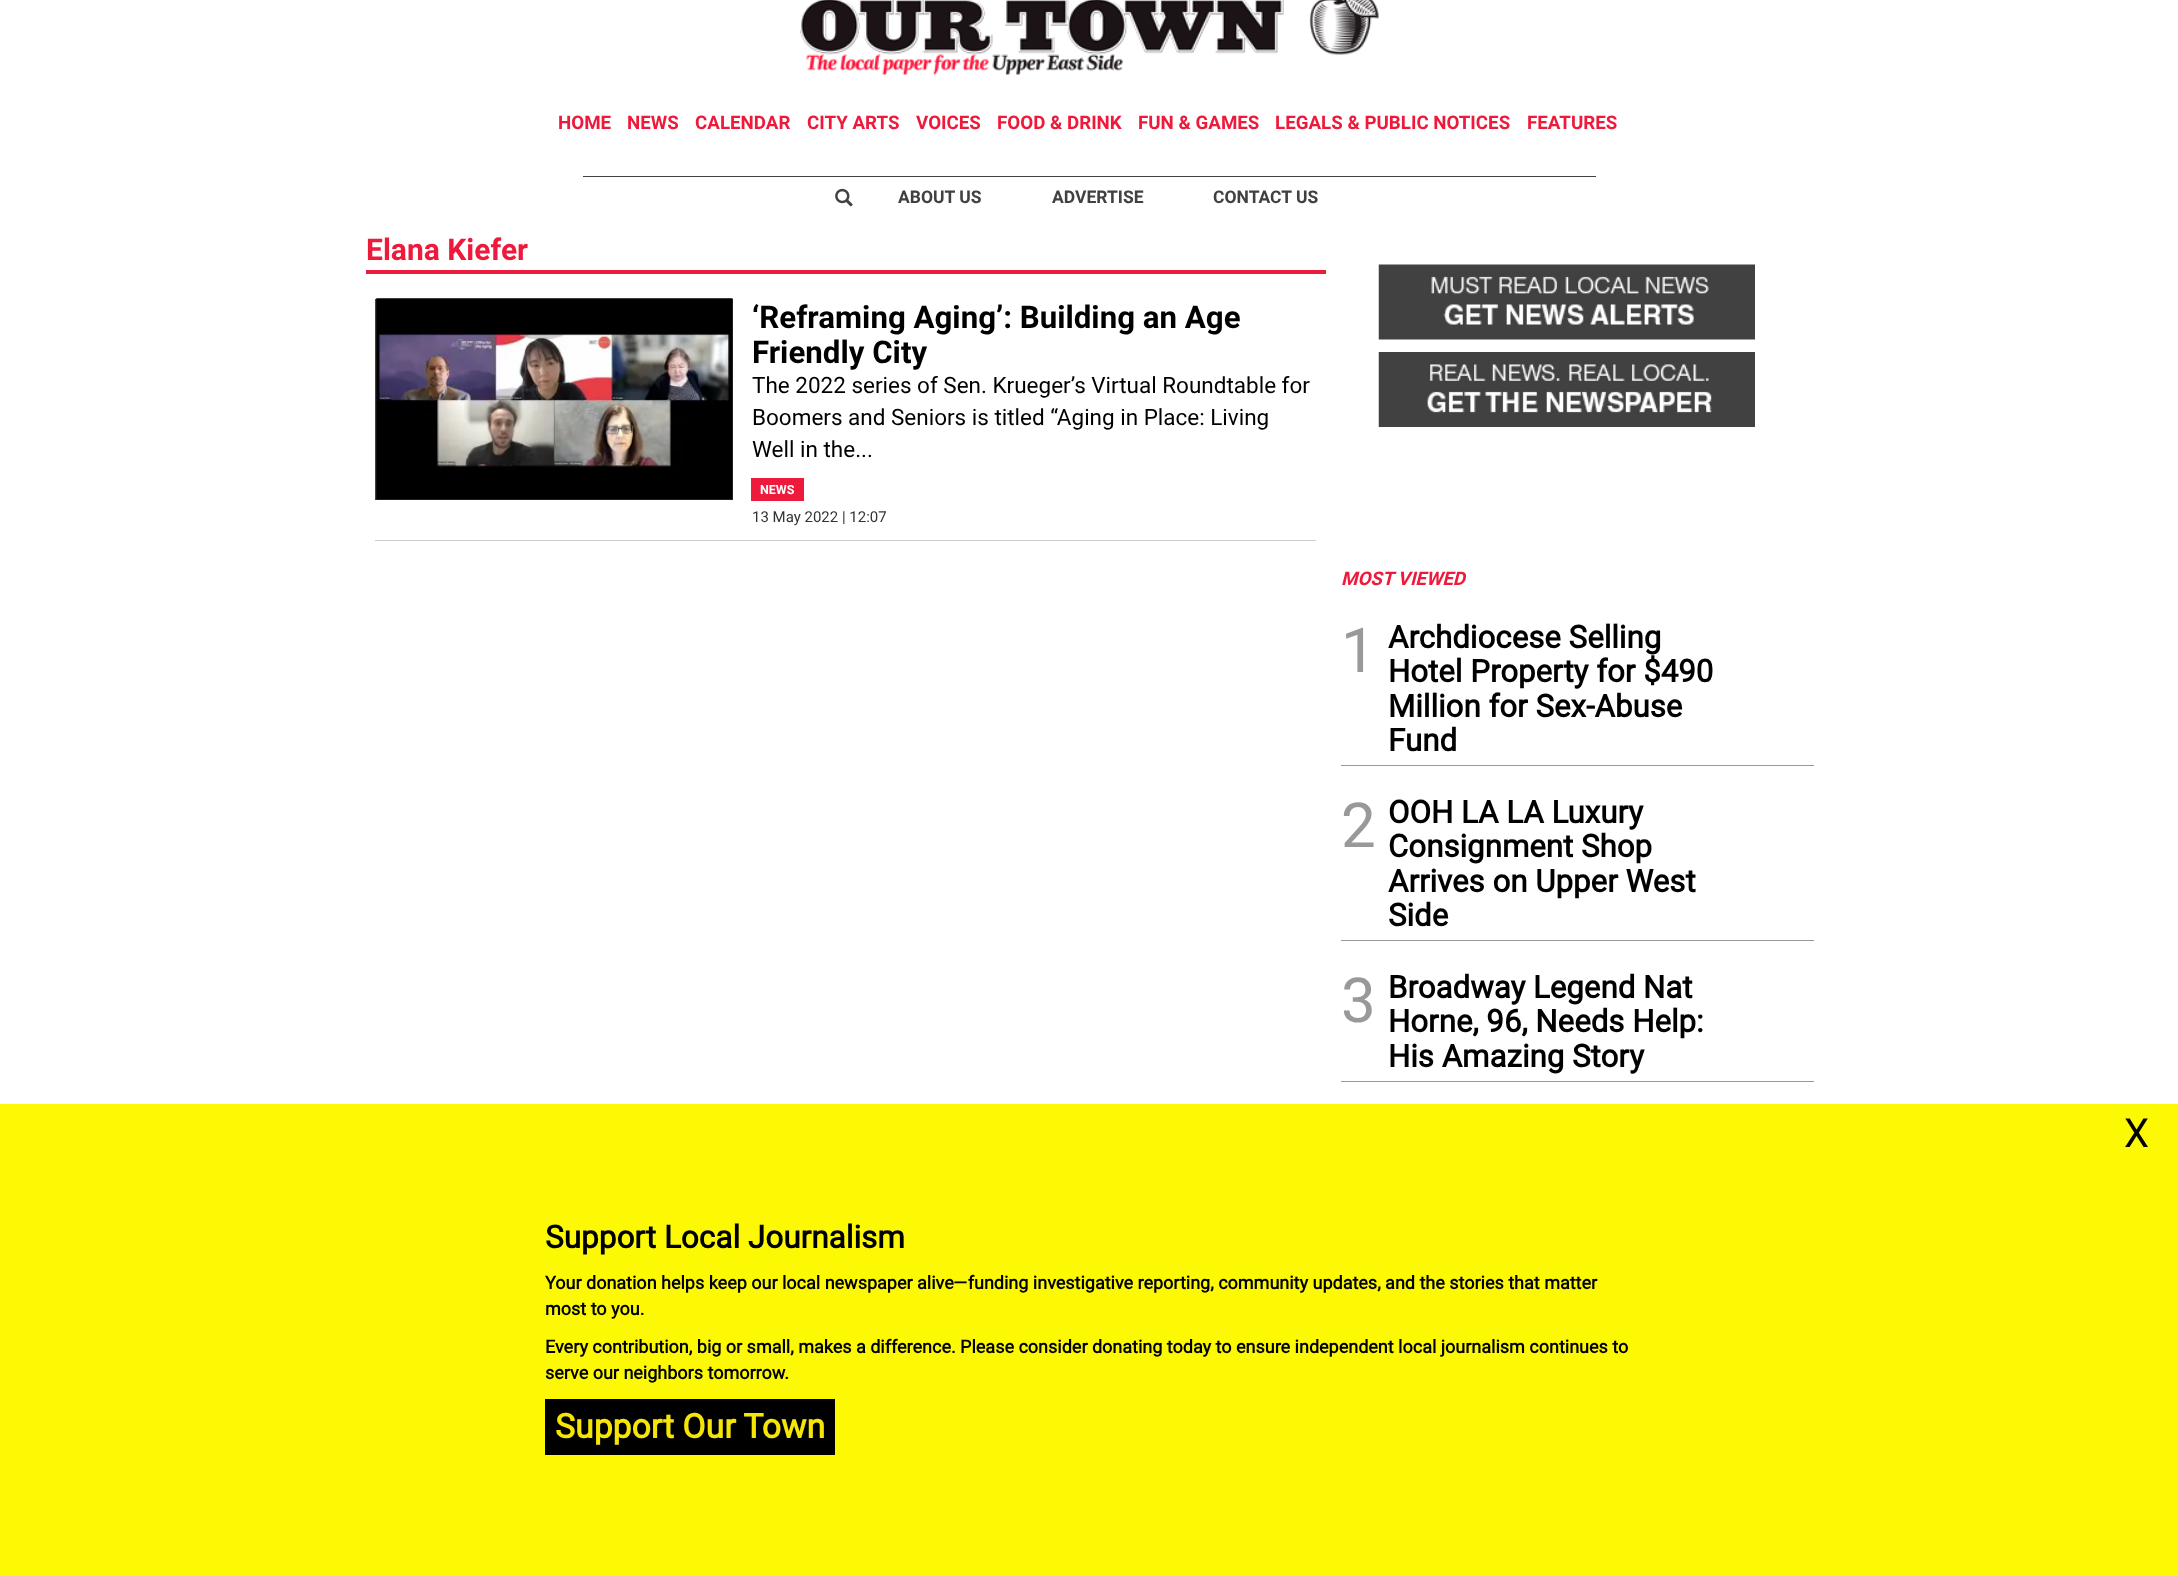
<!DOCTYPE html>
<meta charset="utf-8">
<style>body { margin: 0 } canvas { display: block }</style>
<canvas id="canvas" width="2178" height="1576"></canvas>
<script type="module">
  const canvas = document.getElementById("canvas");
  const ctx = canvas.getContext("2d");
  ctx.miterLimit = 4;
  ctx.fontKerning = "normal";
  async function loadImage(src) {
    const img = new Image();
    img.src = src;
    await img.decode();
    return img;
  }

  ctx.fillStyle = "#ffffff";
  ctx.fillRect(0, 0, 2178, 1576);
  ctx.drawImage(await loadImage("img1.png"), 800, 0, 579, 75);
  ctx.font = "bold 18.75px Roboto";
  ctx.fillStyle = "#ed1a3b";
  ctx.fillText("HOME", 558, 129);
  ctx.fillText("NEWS", 627, 129);
  ctx.fillText("CALENDAR", 695, 129);
  ctx.fillText("CITY ARTS", 807, 129);
  ctx.fillText("VOICES", 916, 129);
  ctx.fillText("FOOD & DRINK", 997, 129);
  ctx.fillText("FUN & GAMES", 1138, 129);
  ctx.fillText("LEGALS & PUBLIC NOTICES", 1275, 129);
  ctx.fillText("FEATURES", 1527, 129);
  ctx.fillStyle = "#414141";
  ctx.fillRect(583, 176, 1013, 1);
  ctx.drawImage(await loadImage("img2.png"), 835, 188, 18, 19);
  ctx.font = "bold 17.5px Roboto";
  ctx.fillText("ABOUT US", 898, 203);
  ctx.fillText("ADVERTISE", 1052, 203);
  ctx.fillText("CONTACT US", 1213, 203);
  ctx.fillStyle = "#ed1a3b";
  ctx.fillRect(366, 270, 960, 4);
  ctx.font = "bold 30px Roboto";
  ctx.fillText("Elana Kiefer", 366, 260);
  ctx.fillStyle = "#cdcdcd";
  ctx.fillRect(375, 540, 941, 1);
  ctx.fillStyle = "#414141";
  ctx.fillRect(375, 299, 358, 201);
  ctx.drawImage(await loadImage("img3.png"), 376, 298, 357, 202);
  ctx.font = "bold 31.25px Roboto";
  ctx.fillStyle = "#000000";
  ctx.fillText("‘Reframing Aging’: Building an Age", 752, 328);
  ctx.fillText("Friendly City", 752, 363);
  ctx.font = "22.5px Roboto";
  ctx.fillText("The 2022 series of Sen. Krueger’s Virtual Roundtable for", 752, 393);
  ctx.fillText("Boomers and Seniors is titled “Aging in Place: Living", 752, 425);
  ctx.fillText("Well in the...", 752, 457);
  ctx.fillStyle = "#ed1a3b";
  ctx.fillRect(751, 478, 53, 23);
  ctx.font = "bold 12.5px Roboto";
  ctx.fillStyle = "#ffffff";
  ctx.fillText("NEWS", 760, 494);
  ctx.font = "15px Roboto";
  ctx.fillStyle = "#333333";
  ctx.fillText("13 May 2022 | 12:07", 752, 522);
  ctx.drawImage(await loadImage("img4.png"), 1378, 264, 377, 76);
  ctx.drawImage(await loadImage("img5.png"), 1378, 352, 377, 75);
  ctx.font = "italic bold 18.75px Roboto";
  ctx.fillStyle = "#ed1a3b";
  ctx.fillText("MOST VIEWED", 1341, 585);
  ctx.fillStyle = "#999999";
  ctx.fillRect(1341, 765, 473, 1);
  ctx.font = "62px Roboto";
  ctx.fillText("1", 1341, 672);
  ctx.font = "bold 31.25px 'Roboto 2'";
  ctx.fillStyle = "#000000";
  ctx.fillText("Archdiocese Selling", 1388, 648);
  ctx.fillText("Hotel Property for $490", 1388, 682);
  ctx.fillText("Million for Sex-Abuse", 1388, 717);
  ctx.fillText("Fund", 1388, 751);
  ctx.fillStyle = "#999999";
  ctx.fillRect(1341, 940, 473, 1);
  ctx.font = "62px Roboto";
  ctx.fillText("2", 1341, 847);
  ctx.font = "bold 31.25px 'Roboto 2'";
  ctx.fillStyle = "#000000";
  ctx.fillText("OOH LA LA Luxury", 1388, 823);
  ctx.fillText("Consignment Shop", 1388, 857);
  ctx.fillText("Arrives on Upper West", 1388, 892);
  ctx.fillText("Side", 1388, 926);
  ctx.fillStyle = "#999999";
  ctx.fillRect(1341, 1081, 473, 1);
  ctx.font = "62px Roboto";
  ctx.fillText("3", 1341, 1022);
  ctx.font = "bold 31.25px 'Roboto 2'";
  ctx.fillStyle = "#000000";
  ctx.fillText("Broadway Legend Nat", 1388, 998);
  ctx.fillText("Horne, 96, Needs Help:", 1388, 1032);
  ctx.fillText("His Amazing Story", 1388, 1067);
  ctx.fillStyle = "#fdf904";
  ctx.fillRect(0, 1104, 2178, 472);
  ctx.font = "40px Roboto";
  ctx.fillStyle = "#000000";
  ctx.fillText("X", 2124, 1147);
  ctx.font = "bold 31.5px 'Roboto 2'";
  ctx.fillText("Support Local Journalism", 545, 1248);
  ctx.font = "bold 18px 'Roboto 2'";
  ctx.fillText("Your donation helps keep our local newspaper alive—funding investigative reporting, community updates, and the stories that matter", 545, 1289);
  ctx.fillText("most to you.", 545, 1315);
  ctx.fillText("Every contribution, big or small, makes a difference. Please consider donating today to ensure independent local journalism continues to", 545, 1353);
  ctx.fillText("serve our neighbors tomorrow.", 545, 1379);
  ctx.fillRect(545, 1399, 290, 56);
  ctx.font = "bold 33.75px 'Roboto 2'";
  ctx.fillStyle = "#f6e604";
  ctx.fillText("Support Our Town", 555, 1438);
</script>
